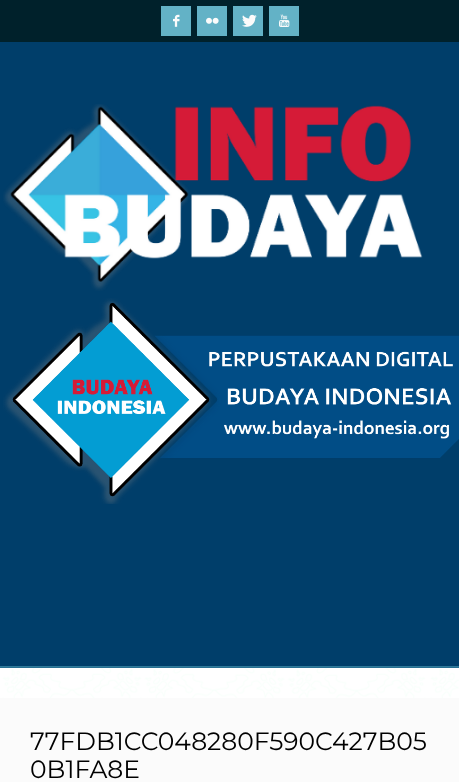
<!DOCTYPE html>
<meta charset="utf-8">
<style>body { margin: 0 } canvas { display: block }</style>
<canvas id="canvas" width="459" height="782"></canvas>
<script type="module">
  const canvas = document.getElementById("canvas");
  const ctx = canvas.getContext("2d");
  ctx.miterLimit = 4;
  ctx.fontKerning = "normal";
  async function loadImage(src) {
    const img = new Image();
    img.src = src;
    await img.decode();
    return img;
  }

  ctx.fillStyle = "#00212b";
  ctx.fillRect(0, 0, 459, 782);
  ctx.fillStyle = "#63b2c6";
  ctx.fillRect(161, 6, 30, 30);
  ctx.drawImage(await loadImage("img1.png"), 173, 14, 7, 13);
  ctx.fillRect(197, 6, 30, 30);
  ctx.drawImage(await loadImage("img2.png"), 206, 17, 13, 7);
  ctx.fillRect(233, 6, 30, 30);
  ctx.drawImage(await loadImage("img3.png"), 242, 14, 15, 13);
  ctx.fillRect(269, 6, 30, 30);
  ctx.drawImage(await loadImage("img4.png"), 279, 14, 11, 13);
  ctx.fillStyle = "#003e6a";
  ctx.fillRect(0, 42, 459, 624);
  ctx.drawImage(await loadImage("img5.png"), 3, 104, 420, 187);
  ctx.drawImage(await loadImage("img6.png"), 3, 298, 456, 206);
  ctx.fillStyle = "#287092";
  ctx.fillRect(0, 667, 459, 1);
  ctx.fillStyle = "#307a9a";
  ctx.fillRect(0, 666, 459, 1);
  ctx.drawImage(await loadImage("img7.png"), 0, 668, 459, 30);
  ctx.fillStyle = "#fbfbfb";
  ctx.fillRect(0, 698, 459, 84);
  ctx.font = "25px Montserrat";
  ctx.fillStyle = "#000000";
  ctx.fillText("77FDB1CC048280F590C427B05", 30, 750);
  ctx.fillText("0B1FA8E", 30, 778);
</script>
